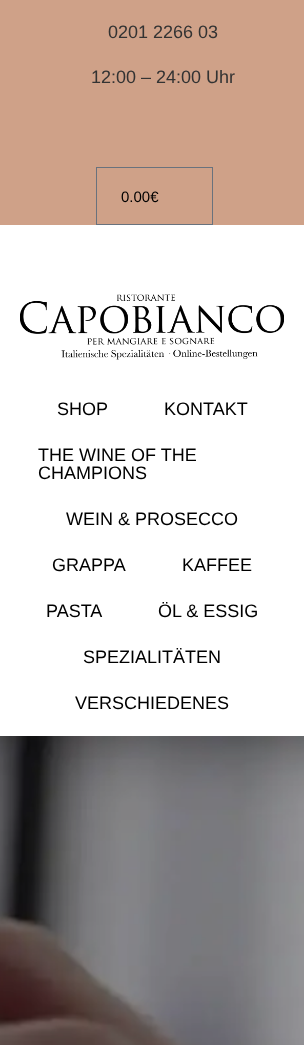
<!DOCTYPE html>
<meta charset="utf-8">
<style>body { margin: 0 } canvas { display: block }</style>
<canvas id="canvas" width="304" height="1045"></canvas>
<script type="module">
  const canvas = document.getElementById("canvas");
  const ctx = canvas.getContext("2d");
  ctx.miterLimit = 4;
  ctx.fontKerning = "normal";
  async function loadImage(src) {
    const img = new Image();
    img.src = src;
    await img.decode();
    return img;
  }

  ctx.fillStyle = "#ffffff";
  ctx.fillRect(0, 0, 304, 1045);
  ctx.fillStyle = "#cfa188";
  ctx.fillRect(0, 0, 304, 225);
  ctx.font = "18px Liberation Sans";
  ctx.fillStyle = "#333333";
  ctx.fillText("0201 2266 03", 108, 38);
  ctx.fillText("12:00 – 24:00 Uhr", 91, 83);
  ctx.strokeStyle = "#69727d";
  ctx.strokeRect(96.5, 167.5, 116, 57);
  ctx.font = "15px Liberation Sans";
  ctx.fillStyle = "#000000";
  ctx.fillText("0.00€", 121, 202);
  ctx.drawImage(await loadImage("img1.png"), 20, 294, 264, 66);
  ctx.font = "18px Liberation Sans";
  ctx.fillText("SHOP", 57, 415);
  ctx.fillText("KONTAKT", 164, 415);
  ctx.fillText("THE WINE OF THE", 38, 461);
  ctx.fillText("CHAMPIONS", 38, 479);
  ctx.fillText("WEIN & PROSECCO", 66, 525);
  ctx.fillText("GRAPPA", 52, 571);
  ctx.fillText("KAFFEE", 182, 571);
  ctx.fillText("PASTA", 46, 617);
  ctx.fillText("ÖL & ESSIG", 158, 617);
  ctx.fillText("SPEZIALITÄTEN", 83, 663);
  ctx.fillText("VERSCHIEDENES", 75, 709);
  ctx.drawImage(await loadImage("img2.png"), 0, 736, 304, 309);
</script>
